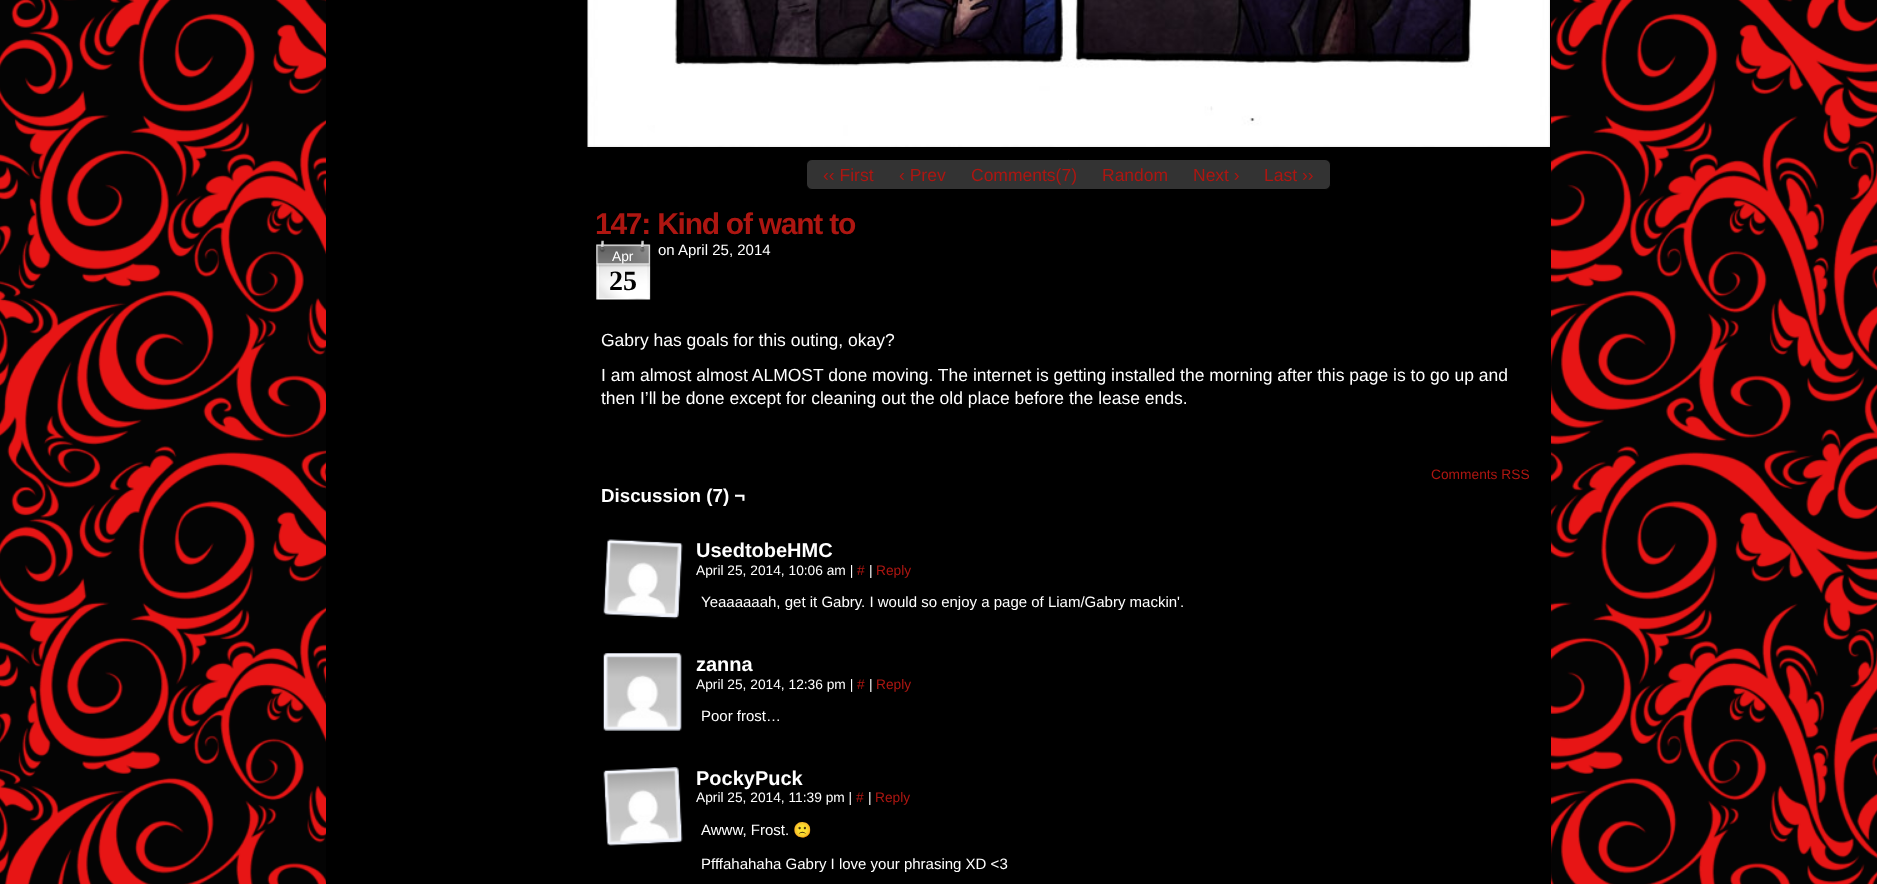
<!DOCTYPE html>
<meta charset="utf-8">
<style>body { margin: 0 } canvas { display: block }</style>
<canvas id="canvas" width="1877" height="884"></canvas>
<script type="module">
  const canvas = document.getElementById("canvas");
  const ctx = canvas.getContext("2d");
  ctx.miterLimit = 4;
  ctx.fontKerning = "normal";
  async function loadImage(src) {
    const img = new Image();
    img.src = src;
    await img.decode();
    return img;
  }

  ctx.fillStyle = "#ffffff";
  ctx.fillRect(0, 0, 1877, 884);
  ctx.drawImage(await loadImage("img1.png"), 0, 0, 1877, 884);
  ctx.fillStyle = "#000000";
  ctx.fillRect(326, 0, 1225, 884);
  ctx.drawImage(await loadImage("img2.png"), 587, 0, 963, 147);
  ctx.fillStyle = "#333333";
  ctx.beginPath();
  ctx.roundRect(806.5, 159.5, 524, 30, 5.5);
  ctx.fill();
  ctx.strokeStyle = "#000000";
  ctx.stroke();
  ctx.font = "17.5px Liberation Sans";
  ctx.fillStyle = "#ad1611";
  ctx.fillText("‹‹ First", 823, 181);
  ctx.fillText("‹ Prev", 899, 181);
  ctx.fillText("Comments(7)", 971, 181);
  ctx.fillText("Random", 1102, 181);
  ctx.fillText("Next ›", 1193, 181);
  ctx.fillText("Last ››", 1264, 181);
  ctx.letterSpacing = "-1.25px";
  ctx.font = "bold 30px Liberation Sans";
  ctx.fillText("147: Kind of want to", 595, 234);
  ctx.drawImage(await loadImage("img3.png"), 596, 240, 55, 60);
  ctx.letterSpacing = "0px";
  ctx.font = "13.75px Liberation Sans";
  ctx.fillStyle = "#ffffff";
  ctx.fillText("Apr", 612, 261);
  ctx.font = "bold 28px Liberation Serif";
  ctx.fillStyle = "#000000";
  ctx.fillText("25", 609, 290);
  ctx.font = "15px Liberation Sans";
  ctx.fillStyle = "#ffffff";
  ctx.fillText("on April 25, 2014", 658, 255);
  ctx.font = "17.5px Liberation Sans";
  ctx.fillText("Gabry has goals for this outing, okay?", 601, 346);
  ctx.fillText("I am almost almost ALMOST done moving. The internet is getting installed the morning after this page is to go up and", 601, 381);
  ctx.fillText("then I’ll be done except for cleaning out the old place before the lease ends.", 601, 404);
  ctx.font = "13.75px Liberation Sans";
  ctx.fillStyle = "#ad1611";
  ctx.fillText("Comments RSS", 1431, 479);
  ctx.font = "bold 18.75px Liberation Sans";
  ctx.fillStyle = "#ffffff";
  ctx.fillText("Discussion (7) ¬", 601, 502);
  ctx.drawImage(await loadImage("img4.png"), 603, 539, 80, 80);
  ctx.font = "bold 20px Liberation Sans";
  ctx.fillText("UsedtobeHMC", 696, 557);
  ctx.font = "13.75px Liberation Sans";
  ctx.fillText("April 25, 2014, 10:06 am |", 696, 575);
  ctx.fillStyle = "#ad1611";
  ctx.fillText("#", 857, 575);
  ctx.fillStyle = "#ffffff";
  ctx.fillText("|", 869, 575);
  ctx.fillStyle = "#ad1611";
  ctx.fillText("Reply", 876, 575);
  ctx.font = "15px Liberation Sans";
  ctx.fillStyle = "#ffffff";
  ctx.fillText("Yeaaaaaah, get it Gabry. I would so enjoy a page of Liam/Gabry mackin'.", 701, 607);
  ctx.drawImage(await loadImage("img5.png"), 603, 653, 79, 78);
  ctx.font = "bold 20px Liberation Sans";
  ctx.fillText("zanna", 696, 671);
  ctx.font = "13.75px Liberation Sans";
  ctx.fillText("April 25, 2014, 12:36 pm |", 696, 689);
  ctx.fillStyle = "#ad1611";
  ctx.fillText("#", 857, 689);
  ctx.fillStyle = "#ffffff";
  ctx.fillText("|", 869, 689);
  ctx.fillStyle = "#ad1611";
  ctx.fillText("Reply", 876, 689);
  ctx.font = "15px Liberation Sans";
  ctx.fillStyle = "#ffffff";
  ctx.fillText("Poor frost…", 701, 721);
  ctx.drawImage(await loadImage("img6.png"), 603, 767, 80, 79);
  ctx.font = "bold 20px Liberation Sans";
  ctx.fillText("PockyPuck", 696, 785);
  ctx.font = "13.75px Liberation Sans";
  ctx.fillText("April 25, 2014, 11:39 pm |", 696, 802);
  ctx.fillStyle = "#ad1611";
  ctx.fillText("#", 856, 802);
  ctx.fillStyle = "#ffffff";
  ctx.fillText("|", 868, 802);
  ctx.fillStyle = "#ad1611";
  ctx.fillText("Reply", 875, 802);
  ctx.font = "15px Liberation Sans";
  ctx.fillStyle = "#ffffff";
  ctx.fillText("Awww, Frost.", 701, 835);
  ctx.font = "15px Noto Color Emoji";
  ctx.fillText("🙁", 793, 835);
  ctx.font = "15px Liberation Sans";
  ctx.fillText("Pfffahahaha Gabry I love your phrasing XD <3", 701, 869);
</script>
